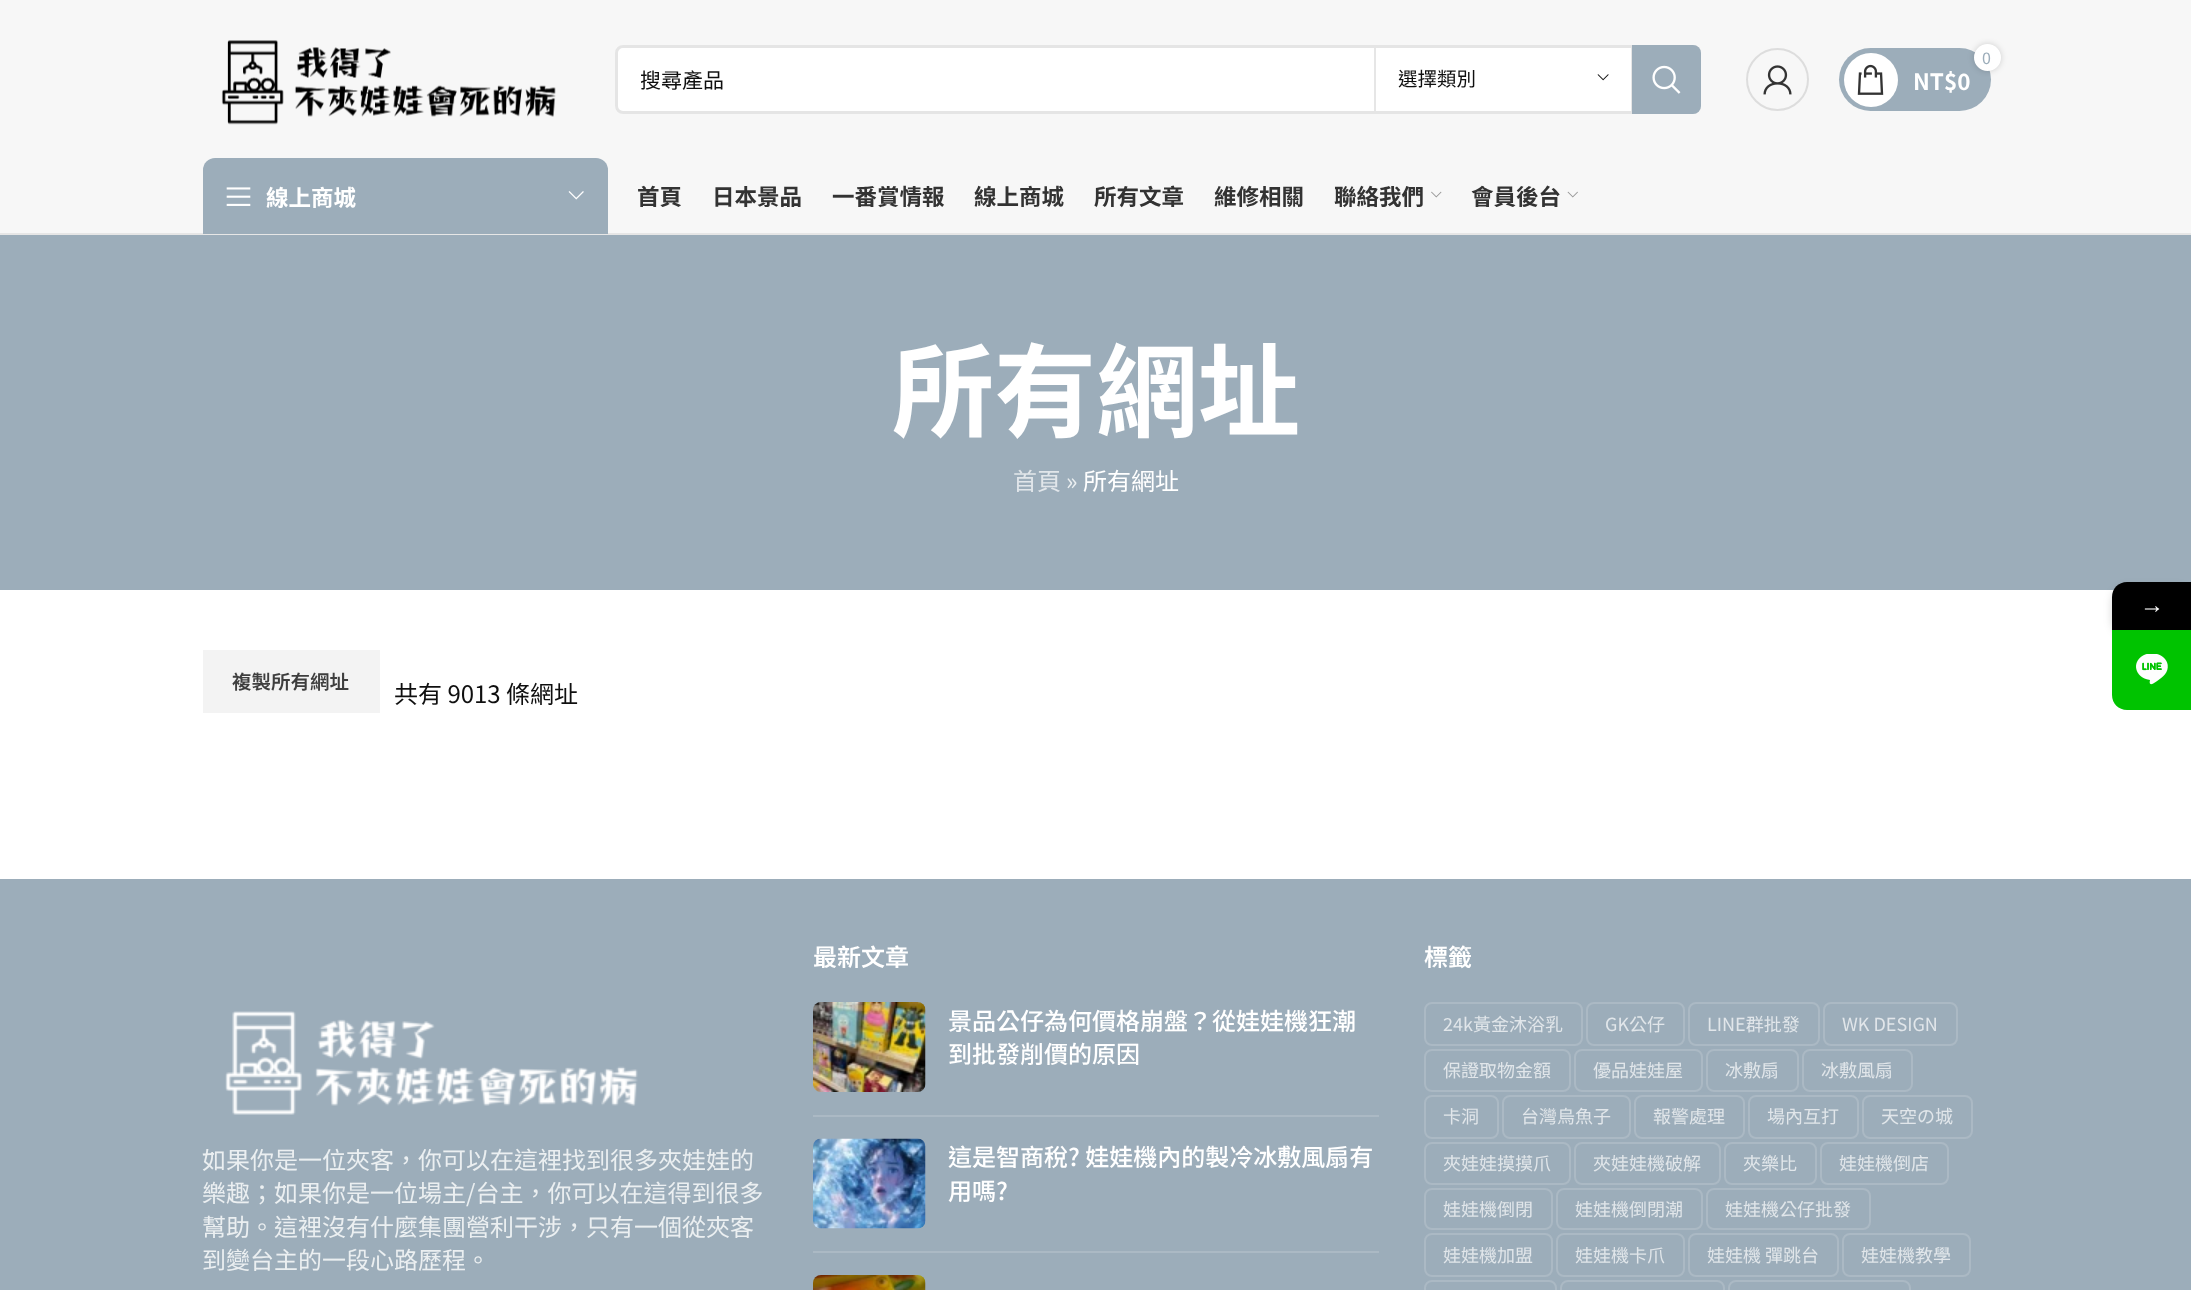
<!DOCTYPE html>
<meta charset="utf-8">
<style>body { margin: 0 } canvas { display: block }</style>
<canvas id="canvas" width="2191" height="1290"></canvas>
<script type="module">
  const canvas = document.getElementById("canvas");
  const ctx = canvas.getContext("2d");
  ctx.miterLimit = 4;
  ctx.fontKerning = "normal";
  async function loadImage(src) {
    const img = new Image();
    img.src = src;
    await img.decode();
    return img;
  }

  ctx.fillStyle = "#ffffff";
  ctx.fillRect(0, 0, 2191, 1290);
  ctx.fillStyle = "#f7f7f7";
  ctx.fillRect(0, 0, 2191, 233);
  ctx.drawImage(await loadImage("img1.png"), 221, 40, 335, 85);
  ctx.fillStyle = "#ffffff";
  ctx.beginPath();
  ctx.roundRect(615, 45, 1086, 69, 8);
  ctx.fill();
  ctx.beginPath();
  ctx.roundRect(616.5, 46.5, 1083, 66, 6.5);
  ctx.strokeStyle = "rgba(0, 0, 0, 0.1)";
  ctx.lineWidth = 3;
  ctx.stroke();
  ctx.save();
  ctx.beginPath();
  ctx.rect(641, 65, 685, 30);
  ctx.clip();
  ctx.font = "21px Noto Sans TC";
  ctx.fillStyle = "#0f0f0f";
  ctx.fillText("搜尋產品", 640, 88);
  ctx.restore();
  ctx.fillStyle = "#e6e6e6";
  ctx.fillRect(1631, 48, 1, 63);
  ctx.fillRect(1374, 48, 2, 63);
  ctx.font = "19.5px Noto Sans TC";
  ctx.fillStyle = "#0f0f0f";
  ctx.fillText("選擇類別", 1398, 86);
  ctx.drawImage(await loadImage("img2.png"), 1597, 74, 12, 7);
  ctx.fillStyle = "#9cadba";
  ctx.beginPath();
  ctx.roundRect(1632, 45, 69, 69, [0, 8, 8, 0]);
  ctx.fill();
  ctx.drawImage(await loadImage("img3.png"), 1652, 65, 29, 29);
  ctx.beginPath();
  ctx.arc(1777.5, 79.5, 30.5, 0, Math.PI * 2);
  ctx.strokeStyle = "#dddddd";
  ctx.lineWidth = 2;
  ctx.stroke();
  ctx.drawImage(await loadImage("img4.png"), 1763, 65, 29, 30);
  ctx.beginPath();
  ctx.roundRect(1839, 48, 152, 63, 31.5);
  ctx.fill();
  ctx.fillStyle = "#ffffff";
  ctx.beginPath();
  ctx.arc(1871, 80, 27, 0, Math.PI * 2);
  ctx.fill();
  ctx.fillStyle = "rgba(0, 0, 0, 0.17)";
  ctx.filter = "blur(3px)";
  ctx.beginPath();
  ctx.roundRect(1974, 44, 27, 27, 13.5);
  ctx.fill();
  ctx.filter = "none";
  ctx.fillStyle = "#ffffff";
  ctx.beginPath();
  ctx.arc(1987.5, 57.5, 13.5, 0, Math.PI * 2);
  ctx.fill();
  ctx.font = "16px Noto Sans TC";
  ctx.fillStyle = "#9cadba";
  ctx.fillText("0", 1982, 64);
  ctx.drawImage(await loadImage("img5.png"), 1857, 64, 27, 31);
  ctx.font = "bold 22.5px Noto Sans TC";
  ctx.fillStyle = "#ffffff";
  ctx.fillText("NT$0", 1913, 90);
  ctx.fillStyle = "#e6e6e6";
  ctx.fillRect(0, 233, 2191, 2);
  ctx.fillStyle = "#9cadba";
  ctx.beginPath();
  ctx.roundRect(203, 158, 405, 76, [12, 12, 0, 0]);
  ctx.fill();
  ctx.drawImage(await loadImage("img6.png"), 226, 187, 25, 19);
  ctx.fillStyle = "#ffffff";
  ctx.fillText("線上商城", 266, 206);
  ctx.drawImage(await loadImage("img7.png"), 568, 191, 16, 9);
  ctx.fillStyle = "#333333";
  ctx.fillText("首頁", 637, 205);
  ctx.fillText("日本景品", 712, 205);
  ctx.fillText("一番賞情報", 832, 205);
  ctx.fillText("線上商城", 974, 205);
  ctx.fillText("所有文章", 1094, 205);
  ctx.fillText("維修相關", 1214, 205);
  ctx.fillText("聯絡我們", 1334, 205);
  ctx.drawImage(await loadImage("img8.png"), 1431, 191, 11, 7);
  ctx.fillText("會員後台", 1471, 205);
  ctx.drawImage(await loadImage("img9.png"), 1567, 191, 11, 7);
  ctx.fillStyle = "#9cadba";
  ctx.fillRect(0, 235, 2191, 355);
  ctx.font = "bold 102px Noto Sans TC";
  ctx.fillStyle = "#ffffff";
  ctx.fillText("所有網址", 892, 429);
  ctx.font = "24px Noto Sans TC";
  ctx.fillStyle = "#e1e6ea";
  ctx.fillText("首頁", 1013, 490);
  ctx.fillStyle = "#ebeff1";
  ctx.fillText("»", 1066, 490);
  ctx.fillStyle = "#ffffff";
  ctx.fillText("所有網址", 1083, 490);
  ctx.fillStyle = "#f3f3f3";
  ctx.fillRect(203, 650, 177, 63);
  ctx.font = "600 19.5px Noto Sans TC";
  ctx.fillStyle = "#3e3e3e";
  ctx.fillText("複製所有網址", 232, 689);
  ctx.font = "24px Noto Sans TC";
  ctx.fillStyle = "#0f0f0f";
  ctx.fillText("共有 9013 條網址", 394, 703);
  ctx.fillStyle = "#9cadba";
  ctx.fillRect(0, 879, 2191, 411);
  ctx.drawImage(await loadImage("img10.png"), 225, 1011, 413, 104);
  ctx.fillStyle = "#ebeff1";
  ctx.fillText("如果你是一位夾客，你可以在這裡找到很多夾娃娃的", 202, 1169);
  ctx.fillText("樂趣；如果你是一位場主/台主，你可以在這得到很多", 202, 1202);
  ctx.fillText("幫助。這裡沒有什麼集團營利干涉，只有一個從夾客", 202, 1236);
  ctx.fillText("到變台主的一段心路歷程。", 202, 1269);
  ctx.font = "600 24px Noto Sans TC";
  ctx.fillStyle = "#ffffff";
  ctx.fillText("最新文章", 813, 966);
  ctx.fillStyle = "#abb9c4";
  ctx.fillRect(813, 1115, 566, 2);
  ctx.drawImage(await loadImage("img11.png"), 813, 1002, 113, 90);
  ctx.font = "500 24px Noto Sans TC";
  ctx.fillStyle = "#ffffff";
  ctx.fillText("景品公仔為何價格崩盤？從娃娃機狂潮", 948, 1030);
  ctx.fillText("到批發削價的原因", 948, 1063);
  ctx.fillStyle = "#abb9c4";
  ctx.fillRect(813, 1251, 566, 2);
  ctx.drawImage(await loadImage("img12.png"), 813, 1138, 113, 91);
  ctx.fillStyle = "#ffffff";
  ctx.fillText("這是智商稅? 娃娃機內的製冷冰敷風扇有", 948, 1166);
  ctx.fillText("用嗎?", 948, 1200);
  ctx.drawImage(await loadImage("img13.png"), 813, 1275, 113, 15);
  ctx.font = "600 24px Noto Sans TC";
  ctx.fillText("標籤", 1424, 966);
  ctx.beginPath();
  ctx.roundRect(1425, 1003, 157, 42, 7);
  ctx.strokeStyle = "#abb9c4";
  ctx.stroke();
  ctx.font = "18px Noto Sans TC";
  ctx.fillStyle = "#e1e6ea";
  ctx.fillText("24k黃金沐浴乳", 1443, 1031);
  ctx.beginPath();
  ctx.roundRect(1587, 1003, 97, 42, 7);
  ctx.stroke();
  ctx.fillText("GK公仔", 1605, 1031);
  ctx.beginPath();
  ctx.roundRect(1689, 1003, 130, 42, 7);
  ctx.stroke();
  ctx.fillText("LINE群批發", 1707, 1031);
  ctx.beginPath();
  ctx.roundRect(1824, 1003, 133, 42, 7);
  ctx.stroke();
  ctx.fillText("WK DESIGN", 1842, 1031);
  ctx.beginPath();
  ctx.roundRect(1425, 1050, 145, 41, 7);
  ctx.stroke();
  ctx.fillText("保證取物金額", 1443, 1077);
  ctx.beginPath();
  ctx.roundRect(1575, 1050, 127, 41, 7);
  ctx.stroke();
  ctx.fillText("優品娃娃屋", 1593, 1077);
  ctx.beginPath();
  ctx.roundRect(1707, 1050, 91, 41, 7);
  ctx.stroke();
  ctx.fillText("冰敷扇", 1725, 1077);
  ctx.beginPath();
  ctx.roundRect(1803, 1050, 109, 41, 7);
  ctx.stroke();
  ctx.fillText("冰敷風扇", 1821, 1077);
  ctx.beginPath();
  ctx.roundRect(1425, 1096, 73, 42, 7);
  ctx.stroke();
  ctx.fillText("卡洞", 1443, 1123);
  ctx.beginPath();
  ctx.roundRect(1503, 1096, 127, 42, 7);
  ctx.stroke();
  ctx.fillText("台灣烏魚子", 1521, 1123);
  ctx.beginPath();
  ctx.roundRect(1635, 1096, 109, 42, 7);
  ctx.stroke();
  ctx.fillText("報警處理", 1653, 1123);
  ctx.beginPath();
  ctx.roundRect(1749, 1096, 109, 42, 7);
  ctx.stroke();
  ctx.fillText("場內互打", 1767, 1123);
  ctx.beginPath();
  ctx.roundRect(1863, 1096, 109, 42, 7);
  ctx.stroke();
  ctx.fillText("天空の城", 1881, 1123);
  ctx.beginPath();
  ctx.roundRect(1425, 1143, 145, 41, 7);
  ctx.stroke();
  ctx.fillText("夾娃娃摸摸爪", 1443, 1170);
  ctx.beginPath();
  ctx.roundRect(1575, 1143, 145, 41, 7);
  ctx.stroke();
  ctx.fillText("夾娃娃機破解", 1593, 1170);
  ctx.beginPath();
  ctx.roundRect(1725, 1143, 91, 41, 7);
  ctx.stroke();
  ctx.fillText("夾樂比", 1743, 1170);
  ctx.beginPath();
  ctx.roundRect(1821, 1143, 127, 41, 7);
  ctx.stroke();
  ctx.fillText("娃娃機倒店", 1839, 1170);
  ctx.beginPath();
  ctx.roundRect(1425, 1189, 127, 40, 7);
  ctx.stroke();
  ctx.fillText("娃娃機倒閉", 1443, 1216);
  ctx.beginPath();
  ctx.roundRect(1557, 1189, 145, 40, 7);
  ctx.stroke();
  ctx.fillText("娃娃機倒閉潮", 1575, 1216);
  ctx.beginPath();
  ctx.roundRect(1707, 1189, 163, 40, 7);
  ctx.stroke();
  ctx.fillText("娃娃機公仔批發", 1725, 1216);
  ctx.beginPath();
  ctx.roundRect(1425, 1234, 127, 42, 7);
  ctx.stroke();
  ctx.fillText("娃娃機加盟", 1443, 1262);
  ctx.beginPath();
  ctx.roundRect(1557, 1234, 127, 42, 7);
  ctx.stroke();
  ctx.fillText("娃娃機卡爪", 1575, 1262);
  ctx.beginPath();
  ctx.roundRect(1689, 1234, 149, 42, 7);
  ctx.stroke();
  ctx.fillText("娃娃機 彈跳台", 1707, 1262);
  ctx.beginPath();
  ctx.roundRect(1843, 1234, 127, 42, 7);
  ctx.stroke();
  ctx.fillText("娃娃機教學", 1861, 1262);
  ctx.beginPath();
  ctx.roundRect(1425, 1281, 131, 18, 7);
  ctx.stroke();
  ctx.beginPath();
  ctx.roundRect(1561, 1281, 163, 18, 7);
  ctx.stroke();
  ctx.beginPath();
  ctx.roundRect(1729, 1281, 181, 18, 7);
  ctx.stroke();
  ctx.fillStyle = "rgba(0, 0, 0, 0.16)";
  ctx.filter = "blur(4.5px)";
  ctx.beginPath();
  ctx.roundRect(2112, 587, 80, 48, 15);
  ctx.fill();
  ctx.filter = "none";
  ctx.fillStyle = "#000000";
  ctx.beginPath();
  ctx.moveTo(2127, 582);
  ctx.lineTo(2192, 582);
  ctx.lineTo(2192, 630);
  ctx.lineTo(2112, 630);
  ctx.lineTo(2112, 597);
  ctx.bezierCurveTo(2112, 588.5, 2118.5, 582, 2127, 582);
  ctx.closePath();
  ctx.fill();
  ctx.font = "24px Liberation Serif";
  ctx.fillStyle = "#ffffff";
  ctx.fillText("→", 2140, 613);
  ctx.fillStyle = "#00c300";
  ctx.beginPath();
  ctx.moveTo(2112, 630);
  ctx.lineTo(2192, 630);
  ctx.lineTo(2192, 710);
  ctx.lineTo(2127, 710);
  ctx.bezierCurveTo(2118.5, 710, 2112, 703.5, 2112, 695);
  ctx.closePath();
  ctx.fill();
  ctx.drawImage(await loadImage("img14.png"), 2136, 654, 32, 31);
</script>
